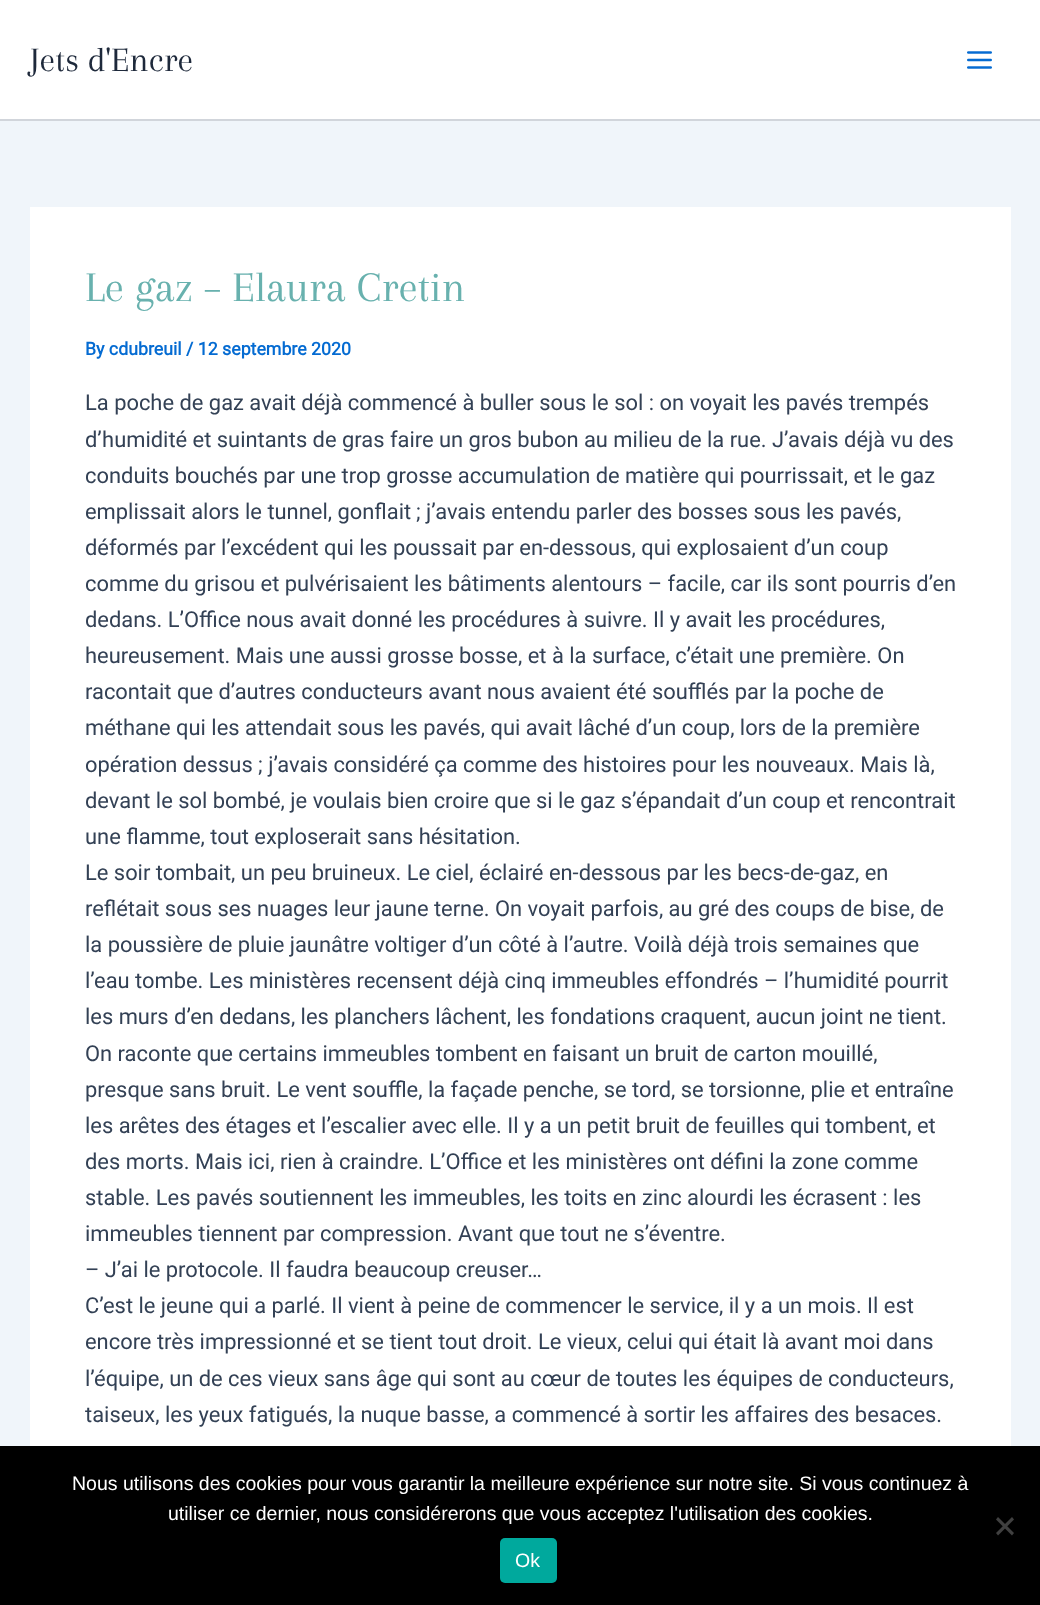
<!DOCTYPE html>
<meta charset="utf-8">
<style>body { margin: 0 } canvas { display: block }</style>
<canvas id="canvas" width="1040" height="1605"></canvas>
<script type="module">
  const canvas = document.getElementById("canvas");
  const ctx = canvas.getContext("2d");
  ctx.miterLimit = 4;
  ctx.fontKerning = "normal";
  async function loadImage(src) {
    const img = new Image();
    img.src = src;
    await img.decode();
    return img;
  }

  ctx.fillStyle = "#f0f5fa";
  ctx.fillRect(0, 0, 1040, 1605);
  ctx.fillStyle = "#ffffff";
  ctx.fillRect(0, 0, 1040, 119);
  ctx.fillStyle = "#d1d5db";
  ctx.fillRect(0, 119, 1040, 2);
  ctx.font = "35.5px Arapey";
  ctx.fillStyle = "#1e293b";
  ctx.fillText("Jets d'Encre", 30, 71);
  ctx.drawImage(await loadImage("img1.png"), 967, 51, 25, 18);
  ctx.fillStyle = "#ffffff";
  ctx.fillRect(30, 207, 981, 1239);
  ctx.font = "43.75px Arapey";
  ctx.fillStyle = "#68b1ae";
  ctx.fillText("Le gaz – Elaura Cretin", 85, 301);
  ctx.font = "bold 17.75px Roboto";
  ctx.fillStyle = "#046bd2";
  ctx.fillText("By cdubreuil / 12 septembre 2020", 85, 355);
  ctx.font = "21.9px Roboto";
  ctx.fillStyle = "#334155";
  ctx.fillText("La poche de gaz avait déjà commencé à buller sous le sol : on voyait les pavés trempés", 85, 410);
  ctx.fillText("d’humidité et suintants de gras faire un gros bubon au milieu de la rue. J’avais déjà vu des", 85, 447);
  ctx.fillText("conduits bouchés par une trop grosse accumulation de matière qui pourrissait, et le gaz", 85, 483);
  ctx.fillText("emplissait alors le tunnel, gonflait", 85, 519);
  ctx.fillText("; j’avais entendu parler des bosses sous les pavés,", 416, 519);
  ctx.fillText("déformés par l’excédent qui les poussait par en-dessous, qui explosaient d’un coup", 85, 555);
  ctx.fillText("comme du grisou et pulvérisaient les bâtiments alentours – facile, car ils sont pourris d’en", 85, 591);
  ctx.fillText("dedans. L’Office nous avait donné les procédures à suivre. Il y avait les procédures,", 85, 627);
  ctx.fillText("heureusement. Mais une aussi grosse bosse, et à la surface, c’était une première. On", 85, 663);
  ctx.fillText("racontait que d’autres conducteurs avant nous avaient été soufflés par la poche de", 85, 699);
  ctx.fillText("méthane qui les attendait sous les pavés, qui avait lâché d’un coup, lors de la première", 85, 735);
  ctx.fillText("opération dessus ; j’avais considéré ça comme des histoires pour les nouveaux. Mais là,", 85, 772);
  ctx.fillText("devant le sol bombé, je voulais bien croire que si le gaz s’épandait d’un coup et rencontrait", 85, 808);
  ctx.fillText("une flamme, tout exploserait sans hésitation.", 85, 844);
  ctx.fillText("Le soir tombait, un peu bruineux. Le ciel, éclairé en-dessous par les becs-de-gaz, en", 85, 880);
  ctx.fillText("reflétait sous ses nuages leur jaune terne. On voyait parfois, au gré des coups de bise, de", 85, 916);
  ctx.fillText("la poussière de pluie jaunâtre voltiger d’un côté à l’autre. Voilà déjà trois semaines que", 85, 952);
  ctx.fillText("l’eau tombe. Les ministères recensent déjà cinq immeubles effondrés – l’humidité pourrit", 85, 988);
  ctx.fillText("les murs d’en dedans, les planchers lâchent, les fondations craquent, aucun joint ne tient.", 85, 1024);
  ctx.fillText("On raconte que certains immeubles tombent en faisant un bruit de carton mouillé,", 85, 1061);
  ctx.fillText("presque sans bruit. Le vent souffle, la façade penche, se tord, se torsionne, plie et entraîne", 85, 1097);
  ctx.fillText("les arêtes des étages et l’escalier avec elle. Il y a un petit bruit de feuilles qui tombent, et", 85, 1133);
  ctx.fillText("des morts. Mais ici, rien à craindre. L’Office et les ministères ont défini la zone comme", 85, 1169);
  ctx.fillText("stable. Les pavés soutiennent les immeubles, les toits en zinc alourdi les écrasent : les", 85, 1205);
  ctx.fillText("immeubles tiennent par compression. Avant que tout ne s’éventre.", 85, 1241);
  ctx.fillText("– J’ai le protocole. Il faudra beaucoup creuser…", 85, 1277);
  ctx.fillText("C’est le jeune qui a parlé. Il vient à peine de commencer le service, il y a un mois. Il est", 85, 1313);
  ctx.fillText("encore très impressionné et se tient tout droit. Le vieux, celui qui était là avant moi dans", 85, 1349);
  ctx.fillText("l’équipe, un de ces vieux sans âge qui sont au cœur de toutes les équipes de conducteurs,", 85, 1386);
  ctx.fillText("taiseux, les yeux fatigués, la nuque basse, a commencé à sortir les affaires des besaces.", 85, 1422);
  ctx.fillStyle = "#000000";
  ctx.fillRect(0, 1446, 1040, 159);
  ctx.font = "19.5px Liberation Sans";
  ctx.fillStyle = "#ffffff";
  ctx.fillText("Nous utilisons des cookies pour vous garantir la meilleure expérience sur notre site. Si vous continuez à", 72, 1490);
  ctx.fillText("utiliser ce dernier, nous considérerons que vous acceptez l'utilisation des cookies.", 168, 1520);
  ctx.fillStyle = "#404040";
  ctx.beginPath();
  ctx.moveTo(1012, 1517);
  ctx.lineTo(1014, 1519.5);
  ctx.lineTo(998, 1535.5);
  ctx.lineTo(996, 1533);
  ctx.closePath();
  ctx.fill();
  ctx.beginPath();
  ctx.moveTo(996, 1519.5);
  ctx.lineTo(998, 1517);
  ctx.lineTo(1014, 1533);
  ctx.lineTo(1012, 1535.5);
  ctx.closePath();
  ctx.fill();
  ctx.fillStyle = "#00a99d";
  ctx.beginPath();
  ctx.roundRect(500, 1538, 57, 45, 5);
  ctx.fill();
  ctx.fillStyle = "#ffffff";
  ctx.fillText("Ok", 515, 1567);
</script>
